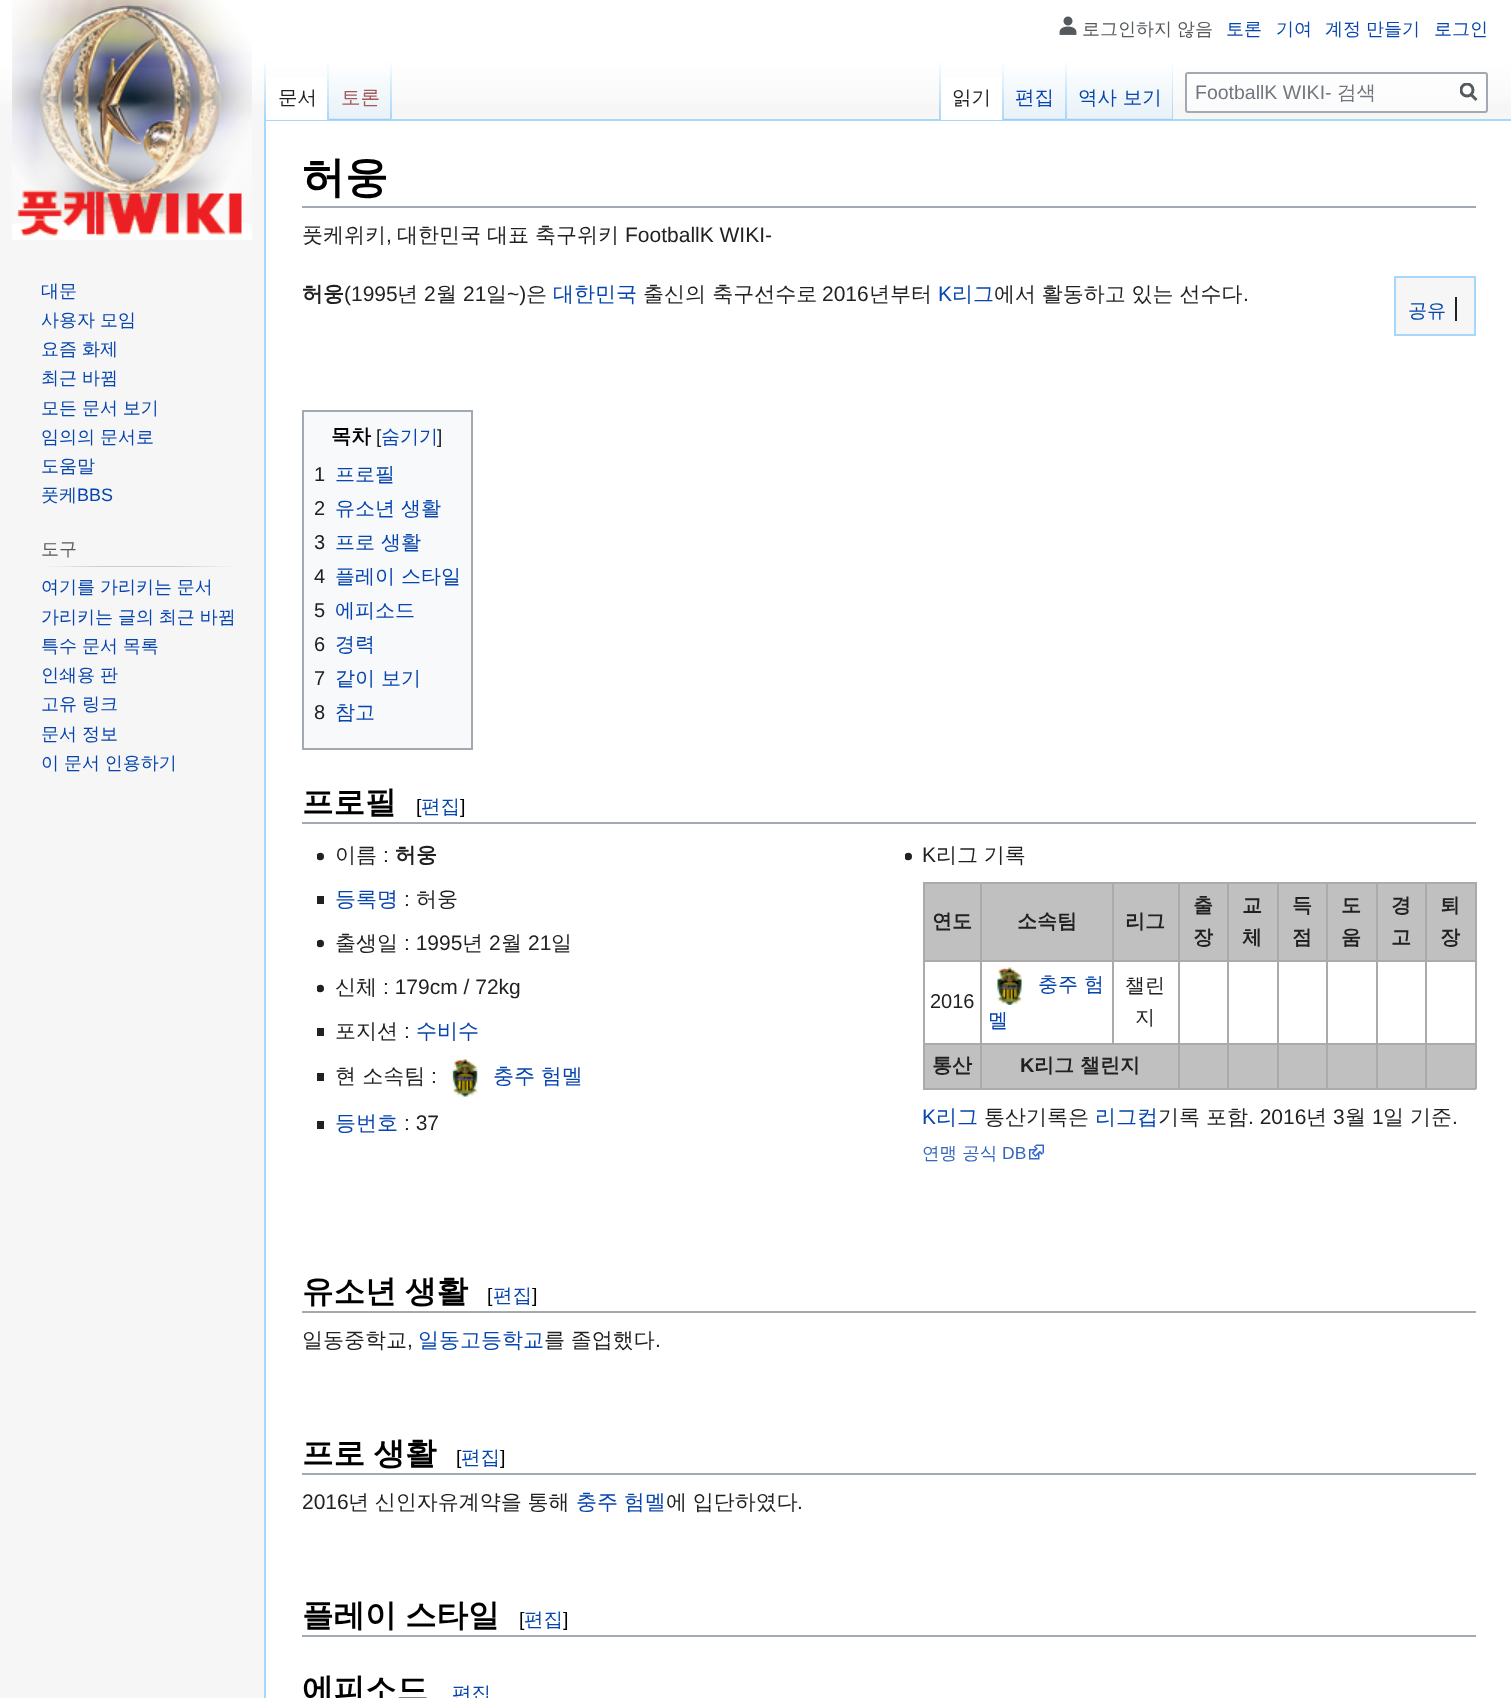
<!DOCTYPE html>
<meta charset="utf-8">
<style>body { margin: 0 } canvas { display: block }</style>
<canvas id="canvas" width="1511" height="1698"></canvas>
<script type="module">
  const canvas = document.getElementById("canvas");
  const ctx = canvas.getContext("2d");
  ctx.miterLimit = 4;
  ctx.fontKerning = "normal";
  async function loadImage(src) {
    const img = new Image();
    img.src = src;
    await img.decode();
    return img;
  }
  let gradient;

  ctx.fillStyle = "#f6f6f6";
  ctx.fillRect(0, 0, 1511, 1698);
  gradient = ctx.createLinearGradient(756, 0, 756, 120);
  gradient.addColorStop(0.5, "#ffffff");
  gradient.addColorStop(1, "#f6f6f6");
  ctx.fillStyle = gradient;
  ctx.fillRect(0, 0, 1511, 103);
  ctx.drawImage(await loadImage("img1.png"), 1059, 16, 18, 19);
  ctx.wordSpacing = "-0.5px";
  ctx.font = "500 18px WenQuanYi Zen Hei";
  ctx.fillStyle = "#54595d";
  ctx.fillText("로그인하지 않음", 1082, 35);
  ctx.wordSpacing = "0px";
  ctx.fillStyle = "#0645ad";
  ctx.fillText("토론", 1226, 35);
  ctx.fillText("기여", 1276, 35);
  ctx.wordSpacing = "-0.5px";
  ctx.fillText("계정 만들기", 1325, 35);
  ctx.wordSpacing = "0px";
  ctx.fillText("로그인", 1434, 35);
  ctx.fillStyle = "#a7d7f9";
  ctx.fillRect(264, 119, 1247, 2);
  ctx.fillRect(264, 119, 2, 1579);
  gradient = ctx.createLinearGradient(265, 60, 265, 120);
  gradient.addColorStop(0, "rgba(167, 215, 249, 0)");
  gradient.addColorStop(1, "#a7d7f9");
  ctx.fillStyle = gradient;
  ctx.fillRect(264, 60, 2, 60);
  ctx.fillStyle = "#ffffff";
  ctx.fillRect(266, 77, 61, 43);
  gradient = ctx.createLinearGradient(328, 60, 328, 120);
  gradient.addColorStop(0, "#ffffff");
  gradient.addColorStop(1, "#a7d7f9");
  ctx.fillStyle = gradient;
  ctx.fillRect(327, 60, 2, 60);
  ctx.font = "500 19.5px WenQuanYi Zen Hei";
  ctx.fillStyle = "#202122";
  ctx.fillText("문서", 278, 104);
  gradient = ctx.createLinearGradient(360, 120, 360, 60);
  gradient.addColorStop(0, "#77c1f6");
  gradient.addColorStop(0.03, "#e8f2f8");
  gradient.addColorStop(1, "#ffffff");
  ctx.fillStyle = gradient;
  ctx.fillRect(329, 69, 63, 51);
  gradient = ctx.createLinearGradient(391, 60, 391, 120);
  gradient.addColorStop(0, "rgba(167, 215, 249, 0)");
  gradient.addColorStop(1, "#a7d7f9");
  ctx.fillStyle = gradient;
  ctx.fillRect(390, 60, 2, 60);
  ctx.fillStyle = "#a55858";
  ctx.fillText("토론", 341, 104);
  gradient = ctx.createLinearGradient(940, 60, 940, 120);
  gradient.addColorStop(0, "rgba(167, 215, 249, 0)");
  gradient.addColorStop(1, "#a7d7f9");
  ctx.fillStyle = gradient;
  ctx.fillRect(939, 60, 2, 60);
  ctx.fillStyle = "#ffffff";
  ctx.fillRect(941, 77, 61, 43);
  gradient = ctx.createLinearGradient(1003, 60, 1003, 120);
  gradient.addColorStop(0, "#ffffff");
  gradient.addColorStop(1, "#a7d7f9");
  ctx.fillStyle = gradient;
  ctx.fillRect(1002, 60, 2, 60);
  ctx.fillStyle = "#202122";
  ctx.fillText("읽기", 952, 104);
  gradient = ctx.createLinearGradient(1035, 120, 1035, 60);
  gradient.addColorStop(0, "#77c1f6");
  gradient.addColorStop(0.03, "#e8f2f8");
  gradient.addColorStop(1, "#ffffff");
  ctx.fillStyle = gradient;
  ctx.fillRect(1004, 69, 63, 51);
  gradient = ctx.createLinearGradient(1066, 60, 1066, 120);
  gradient.addColorStop(0, "rgba(167, 215, 249, 0)");
  gradient.addColorStop(1, "#a7d7f9");
  ctx.fillStyle = gradient;
  ctx.fillRect(1065, 60, 2, 60);
  ctx.fillStyle = "#0645ad";
  ctx.fillText("편집", 1015, 104);
  gradient = ctx.createLinearGradient(1120, 120, 1120, 60);
  gradient.addColorStop(0, "#77c1f6");
  gradient.addColorStop(0.03, "#e8f2f8");
  gradient.addColorStop(1, "#ffffff");
  ctx.fillStyle = gradient;
  ctx.fillRect(1067, 69, 106, 51);
  gradient = ctx.createLinearGradient(1172, 60, 1172, 120);
  gradient.addColorStop(0, "rgba(167, 215, 249, 0)");
  gradient.addColorStop(1, "#a7d7f9");
  ctx.fillStyle = gradient;
  ctx.fillRect(1172, 60, 1, 60);
  ctx.fillStyle = "#0645ad";
  ctx.fillText("역사 보기", 1078, 104);
  ctx.fillStyle = "rgba(255, 255, 255, 0.5)";
  ctx.beginPath();
  ctx.roundRect(1186, 73, 301, 39, 2);
  ctx.fill();
  ctx.strokeStyle = "#a2a9b1";
  ctx.lineWidth = 2;
  ctx.stroke();
  ctx.font = "19.5px Liberation Sans";
  ctx.fillStyle = "#72777d";
  ctx.fillText("FootballK WIKI-", 1195, 99);
  ctx.font = "500 19.5px WenQuanYi Zen Hei";
  ctx.fillText("검색", 1337, 99);
  ctx.beginPath();
  ctx.moveTo(1476.5, 100);
  ctx.lineTo(1470.5, 94);
  ctx.strokeStyle = "#54595d";
  ctx.lineWidth = 3;
  ctx.stroke();
  ctx.save();
  ctx.beginPath();
  ctx.rect(1460, 83, 18, 19);
  ctx.clip();
  ctx.beginPath();
  ctx.arc(1467, 90, 6, 0, Math.PI * 2);
  ctx.stroke();
  ctx.restore();
  ctx.drawImage(await loadImage("img2.png"), 12, 0, 240, 240);
  ctx.font = "500 18px WenQuanYi Zen Hei";
  ctx.fillStyle = "#0645ad";
  ctx.fillText("대문", 41, 297);
  ctx.wordSpacing = "-0.5px";
  ctx.fillText("사용자 모임", 41, 326);
  ctx.fillText("요즘 화제", 41, 355);
  ctx.fillText("최근 바뀜", 41, 384);
  ctx.fillText("모든 문서 보기", 41, 414);
  ctx.fillText("임의의 문서로", 41, 443);
  ctx.wordSpacing = "0px";
  ctx.fillText("도움말", 41, 472);
  ctx.fillText("풋케", 41, 501);
  ctx.font = "18px Liberation Sans";
  ctx.fillText("BBS", 77, 501);
  gradient = ctx.createLinearGradient(41, 566, 237, 566);
  gradient.addColorStop(0, "#f6f6f6");
  gradient.addColorStop(0.33, "#c8ccd1");
  gradient.addColorStop(0.66, "#c8ccd1");
  gradient.addColorStop(1, "#f6f6f6");
  ctx.fillStyle = gradient;
  ctx.fillRect(41, 566, 196, 1);
  ctx.font = "500 18px WenQuanYi Zen Hei";
  ctx.fillStyle = "#54595d";
  ctx.fillText("도구", 41, 555);
  ctx.wordSpacing = "-0.5px";
  ctx.fillStyle = "#0645ad";
  ctx.fillText("여기를 가리키는 문서", 41, 593);
  ctx.fillText("가리키는 글의 최근 바뀜", 41, 623);
  ctx.fillText("특수 문서 목록", 41, 652);
  ctx.fillText("인쇄용 판", 41, 681);
  ctx.fillText("고유 링크", 41, 710);
  ctx.fillText("문서 정보", 41, 740);
  ctx.fillText("이 문서 인용하기", 41, 769);
  ctx.fillStyle = "#ffffff";
  ctx.fillRect(266, 121, 1245, 1577);
  ctx.fillStyle = "#a2a9b1";
  ctx.fillRect(302, 206, 1174, 2);
  ctx.wordSpacing = "0px";
  ctx.font = "bold 43px WenQuanYi Zen Hei";
  ctx.fillStyle = "#000000";
  ctx.fillText("허웅", 302, 192);
  ctx.font = "500 21px WenQuanYi Zen Hei";
  ctx.fillStyle = "#202122";
  ctx.fillText("풋케위키", 302, 242);
  ctx.font = "21px Liberation Sans";
  ctx.fillText(",", 386, 242);
  ctx.font = "500 21px WenQuanYi Zen Hei";
  ctx.fillText("대한민국", 397, 242);
  ctx.fillText("대표", 487, 242);
  ctx.fillText("축구위키", 535, 242);
  ctx.font = "21px Liberation Sans";
  ctx.fillText("FootballK WIKI-", 625, 242);
  ctx.font = "bold 21px WenQuanYi Zen Hei";
  ctx.fillText("허웅", 302, 301);
  ctx.font = "21px Liberation Sans";
  ctx.fillText("(1995", 344, 301);
  ctx.font = "500 21px WenQuanYi Zen Hei";
  ctx.fillText("년", 397, 301);
  ctx.font = "21px Liberation Sans";
  ctx.fillText("2", 424, 301);
  ctx.font = "500 21px WenQuanYi Zen Hei";
  ctx.fillText("월", 436, 301);
  ctx.font = "21px Liberation Sans";
  ctx.fillText("21", 463, 301);
  ctx.font = "500 21px WenQuanYi Zen Hei";
  ctx.fillText("일", 486, 301);
  ctx.font = "21px Liberation Sans";
  ctx.fillText("~)", 507, 301);
  ctx.font = "500 21px WenQuanYi Zen Hei";
  ctx.fillText("은", 526, 301);
  ctx.fillStyle = "#0645ad";
  ctx.fillText("대한민국", 553, 301);
  ctx.fillStyle = "#202122";
  ctx.fillText("출신의 축구선수로", 643, 301);
  ctx.font = "21px Liberation Sans";
  ctx.fillText("2016", 822, 301);
  ctx.font = "500 21px WenQuanYi Zen Hei";
  ctx.fillText("년부터", 869, 301);
  ctx.font = "21px Liberation Sans";
  ctx.fillStyle = "#0645ad";
  ctx.fillText("K", 938, 301);
  ctx.font = "500 21px WenQuanYi Zen Hei";
  ctx.fillText("리그", 952, 301);
  ctx.wordSpacing = "-0.5px";
  ctx.fillStyle = "#202122";
  ctx.fillText("에서 활동하고 있는 선수다", 994, 301);
  ctx.wordSpacing = "0px";
  ctx.font = "21px Liberation Sans";
  ctx.fillText(".", 1243, 301);
  ctx.fillStyle = "#f8f9fa";
  ctx.beginPath();
  ctx.rect(303, 411, 169, 338);
  ctx.fill();
  ctx.strokeStyle = "#a2a9b1";
  ctx.lineWidth = 2;
  ctx.stroke();
  ctx.font = "bold 20px WenQuanYi Zen Hei";
  ctx.fillStyle = "#000000";
  ctx.fillText("목차", 331, 443);
  ctx.font = "19px Liberation Sans";
  ctx.fillStyle = "#202122";
  ctx.fillText("[", 376, 443);
  ctx.font = "500 19px WenQuanYi Zen Hei";
  ctx.fillStyle = "#0645ad";
  ctx.fillText("숨기기", 381, 443);
  ctx.font = "19px Liberation Sans";
  ctx.fillStyle = "#202122";
  ctx.fillText("]", 437, 443);
  ctx.font = "20px Liberation Sans";
  ctx.fillText("1", 314, 481);
  ctx.font = "500 20px WenQuanYi Zen Hei";
  ctx.fillStyle = "#0645ad";
  ctx.fillText("프로필", 335, 481);
  ctx.font = "20px Liberation Sans";
  ctx.fillStyle = "#202122";
  ctx.fillText("2", 314, 515);
  ctx.font = "500 20px WenQuanYi Zen Hei";
  ctx.fillStyle = "#0645ad";
  ctx.fillText("유소년 생활", 335, 515);
  ctx.font = "20px Liberation Sans";
  ctx.fillStyle = "#202122";
  ctx.fillText("3", 314, 549);
  ctx.font = "500 20px WenQuanYi Zen Hei";
  ctx.fillStyle = "#0645ad";
  ctx.fillText("프로 생활", 335, 549);
  ctx.font = "20px Liberation Sans";
  ctx.fillStyle = "#202122";
  ctx.fillText("4", 314, 583);
  ctx.font = "500 20px WenQuanYi Zen Hei";
  ctx.fillStyle = "#0645ad";
  ctx.fillText("플레이 스타일", 335, 583);
  ctx.font = "20px Liberation Sans";
  ctx.fillStyle = "#202122";
  ctx.fillText("5", 314, 617);
  ctx.font = "500 20px WenQuanYi Zen Hei";
  ctx.fillStyle = "#0645ad";
  ctx.fillText("에피소드", 335, 617);
  ctx.font = "20px Liberation Sans";
  ctx.fillStyle = "#202122";
  ctx.fillText("6", 314, 651);
  ctx.font = "500 20px WenQuanYi Zen Hei";
  ctx.fillStyle = "#0645ad";
  ctx.fillText("경력", 335, 651);
  ctx.font = "20px Liberation Sans";
  ctx.fillStyle = "#202122";
  ctx.fillText("7", 314, 685);
  ctx.font = "500 20px WenQuanYi Zen Hei";
  ctx.fillStyle = "#0645ad";
  ctx.fillText("같이 보기", 335, 685);
  ctx.font = "20px Liberation Sans";
  ctx.fillStyle = "#202122";
  ctx.fillText("8", 314, 719);
  ctx.font = "500 20px WenQuanYi Zen Hei";
  ctx.fillStyle = "#0645ad";
  ctx.fillText("참고", 335, 719);
  ctx.fillStyle = "#a2a9b1";
  ctx.fillRect(302, 822, 1174, 2);
  ctx.font = "bold 31.5px WenQuanYi Zen Hei";
  ctx.fillStyle = "#000000";
  ctx.fillText("프로필", 302, 813);
  ctx.font = "19.5px Liberation Sans";
  ctx.fillText("[", 416, 813);
  ctx.font = "500 19.5px WenQuanYi Zen Hei";
  ctx.fillStyle = "#0645ad";
  ctx.fillText("편집", 421, 813);
  ctx.font = "19.5px Liberation Sans";
  ctx.fillStyle = "#000000";
  ctx.fillText("]", 460, 813);
  ctx.drawImage(await loadImage("img3.png"), 317, 852, 7, 9);
  ctx.font = "500 21px WenQuanYi Zen Hei";
  ctx.fillStyle = "#202122";
  ctx.fillText("이름", 335, 862);
  ctx.font = "21px Liberation Sans";
  ctx.fillText(":", 383, 862);
  ctx.font = "bold 21px WenQuanYi Zen Hei";
  ctx.fillText("허웅", 395, 862);
  ctx.fillRect(317, 896, 7, 8);
  ctx.font = "500 21px WenQuanYi Zen Hei";
  ctx.fillStyle = "#0645ad";
  ctx.fillText("등록명", 335, 906);
  ctx.font = "21px Liberation Sans";
  ctx.fillStyle = "#202122";
  ctx.fillText(":", 404, 906);
  ctx.font = "500 21px WenQuanYi Zen Hei";
  ctx.fillText("허웅", 416, 906);
  ctx.drawImage(await loadImage("img3.png"), 317, 939, 7, 9);
  ctx.fillText("출생일", 335, 950);
  ctx.font = "21px Liberation Sans";
  ctx.fillText(": 1995", 404, 950);
  ctx.font = "500 21px WenQuanYi Zen Hei";
  ctx.fillText("년", 462, 950);
  ctx.font = "21px Liberation Sans";
  ctx.fillText("2", 489, 950);
  ctx.font = "500 21px WenQuanYi Zen Hei";
  ctx.fillText("월", 501, 950);
  ctx.font = "21px Liberation Sans";
  ctx.fillText("21", 528, 950);
  ctx.font = "500 21px WenQuanYi Zen Hei";
  ctx.fillText("일", 551, 950);
  ctx.drawImage(await loadImage("img3.png"), 317, 984, 7, 9);
  ctx.fillText("신체", 335, 994);
  ctx.font = "21px Liberation Sans";
  ctx.fillText(": 179cm / 72kg", 383, 994);
  ctx.fillRect(317, 1028, 7, 8);
  ctx.font = "500 21px WenQuanYi Zen Hei";
  ctx.fillText("포지션", 335, 1038);
  ctx.font = "21px Liberation Sans";
  ctx.fillText(":", 404, 1038);
  ctx.font = "500 21px WenQuanYi Zen Hei";
  ctx.fillStyle = "#0645ad";
  ctx.fillText("수비수", 416, 1038);
  ctx.fillStyle = "#202122";
  ctx.fillRect(317, 1073, 7, 8);
  ctx.fillText("현 소속팀", 335, 1083);
  ctx.font = "21px Liberation Sans";
  ctx.fillText(":", 431, 1083);
  ctx.drawImage(await loadImage("img4.png"), 452, 1059, 26, 38);
  ctx.wordSpacing = "-0.5px";
  ctx.font = "500 21px WenQuanYi Zen Hei";
  ctx.fillStyle = "#0645ad";
  ctx.fillText("충주 험멜", 493, 1083);
  ctx.fillStyle = "#202122";
  ctx.fillRect(317, 1121, 7, 8);
  ctx.wordSpacing = "0px";
  ctx.fillStyle = "#0645ad";
  ctx.fillText("등번호", 335, 1130);
  ctx.font = "21px Liberation Sans";
  ctx.fillStyle = "#202122";
  ctx.fillText(": 37", 404, 1130);
  ctx.drawImage(await loadImage("img3.png"), 905, 852, 7, 9);
  ctx.fillText("K", 922, 862);
  ctx.wordSpacing = "-0.5px";
  ctx.font = "500 21px WenQuanYi Zen Hei";
  ctx.fillText("리그 기록", 936, 862);
  ctx.fillStyle = "#aaaaaa";
  ctx.fillRect(923, 882, 553, 2);
  ctx.fillRect(1475, 882, 2, 207);
  ctx.fillRect(923, 1088, 553, 2);
  ctx.fillRect(923, 882, 2, 207);
  ctx.fillStyle = "#c0c0c0";
  ctx.fillRect(925, 884, 550, 76);
  ctx.wordSpacing = "0px";
  ctx.font = "bold 20px WenQuanYi Zen Hei";
  ctx.fillStyle = "#202122";
  ctx.fillText("연도", 932, 928);
  ctx.fillStyle = "#aaaaaa";
  ctx.fillRect(1425, 960, 51, 2);
  ctx.fillRect(1425, 1043, 51, 2);
  ctx.fillStyle = "#c0c0c0";
  ctx.fillRect(925, 1045, 550, 43);
  ctx.fillStyle = "#aaaaaa";
  ctx.fillRect(1425, 1043, 2, 46);
  ctx.fillRect(1376, 1043, 51, 2);
  ctx.fillRect(1425, 960, 2, 84);
  ctx.fillRect(1376, 960, 51, 2);
  ctx.fillRect(1376, 1043, 2, 46);
  ctx.fillRect(1326, 1043, 51, 2);
  ctx.fillRect(1376, 960, 2, 84);
  ctx.fillRect(1326, 960, 51, 2);
  ctx.fillRect(1326, 1043, 2, 46);
  ctx.fillRect(1277, 1043, 51, 2);
  ctx.fillRect(1326, 960, 2, 84);
  ctx.fillRect(1277, 960, 51, 2);
  ctx.fillRect(1277, 1043, 2, 46);
  ctx.fillRect(1227, 1043, 51, 2);
  ctx.fillRect(1277, 960, 2, 84);
  ctx.fillRect(1227, 960, 51, 2);
  ctx.fillRect(1227, 1043, 2, 46);
  ctx.fillRect(1178, 1043, 51, 2);
  ctx.fillRect(1227, 960, 2, 84);
  ctx.fillRect(1178, 960, 51, 2);
  ctx.fillRect(1178, 1043, 2, 46);
  ctx.fillRect(980, 1043, 199, 2);
  ctx.fillRect(1178, 960, 2, 84);
  ctx.fillRect(1112, 960, 67, 2);
  ctx.fillRect(1112, 960, 2, 84);
  ctx.fillRect(980, 960, 133, 2);
  ctx.fillRect(980, 1043, 2, 46);
  ctx.fillRect(923, 1043, 58, 2);
  ctx.fillRect(980, 960, 2, 84);
  ctx.fillRect(923, 960, 58, 2);
  ctx.fillRect(980, 882, 2, 80);
  ctx.fillStyle = "#202122";
  ctx.fillText("소속팀", 1017, 928);
  ctx.fillStyle = "#aaaaaa";
  ctx.fillRect(1112, 882, 2, 80);
  ctx.fillStyle = "#202122";
  ctx.fillText("리그", 1125, 928);
  ctx.fillStyle = "#aaaaaa";
  ctx.fillRect(1178, 882, 2, 80);
  ctx.fillStyle = "#202122";
  ctx.fillText("출", 1193, 912);
  ctx.fillText("장", 1193, 944);
  ctx.fillStyle = "#aaaaaa";
  ctx.fillRect(1227, 882, 2, 80);
  ctx.fillStyle = "#202122";
  ctx.fillText("교", 1242, 912);
  ctx.fillText("체", 1242, 944);
  ctx.fillStyle = "#aaaaaa";
  ctx.fillRect(1277, 882, 2, 80);
  ctx.fillStyle = "#202122";
  ctx.fillText("득", 1292, 912);
  ctx.fillText("점", 1292, 944);
  ctx.fillStyle = "#aaaaaa";
  ctx.fillRect(1326, 882, 2, 80);
  ctx.fillStyle = "#202122";
  ctx.fillText("도", 1341, 912);
  ctx.fillText("움", 1341, 944);
  ctx.fillStyle = "#aaaaaa";
  ctx.fillRect(1376, 882, 2, 80);
  ctx.fillStyle = "#202122";
  ctx.fillText("경", 1391, 912);
  ctx.fillText("고", 1391, 944);
  ctx.fillStyle = "#aaaaaa";
  ctx.fillRect(1425, 882, 2, 80);
  ctx.fillStyle = "#202122";
  ctx.fillText("퇴", 1440, 912);
  ctx.fillText("장", 1440, 944);
  ctx.font = "20px Liberation Sans";
  ctx.fillText("2016", 930, 1008);
  ctx.drawImage(await loadImage("img5.png"), 997, 967, 25, 38);
  ctx.font = "500 20px WenQuanYi Zen Hei";
  ctx.fillStyle = "#0645ad";
  ctx.fillText("충주 험", 1038, 991);
  ctx.fillText("멜", 988, 1027);
  ctx.fillStyle = "#202122";
  ctx.fillText("챌린", 1125, 992);
  ctx.fillText("지", 1135, 1024);
  ctx.font = "bold 20px WenQuanYi Zen Hei";
  ctx.fillText("통산", 932, 1072);
  ctx.font = "bold 20px Liberation Sans";
  ctx.fillText("K", 1020, 1072);
  ctx.font = "bold 20px WenQuanYi Zen Hei";
  ctx.fillText("리그 챌린지", 1034, 1072);
  ctx.font = "21px Liberation Sans";
  ctx.fillStyle = "#0645ad";
  ctx.fillText("K", 922, 1124);
  ctx.font = "500 21px WenQuanYi Zen Hei";
  ctx.fillText("리그", 936, 1124);
  ctx.fillStyle = "#202122";
  ctx.fillText("통산기록은", 984, 1124);
  ctx.fillStyle = "#0645ad";
  ctx.fillText("리그컵", 1095, 1124);
  ctx.fillStyle = "#202122";
  ctx.fillText("기록", 1158, 1124);
  ctx.fillText("포함", 1206, 1124);
  ctx.font = "21px Liberation Sans";
  ctx.fillText(". 2016", 1248, 1124);
  ctx.font = "500 21px WenQuanYi Zen Hei";
  ctx.fillText("년", 1306, 1124);
  ctx.font = "21px Liberation Sans";
  ctx.fillText("3", 1333, 1124);
  ctx.font = "500 21px WenQuanYi Zen Hei";
  ctx.fillText("월", 1345, 1124);
  ctx.font = "21px Liberation Sans";
  ctx.fillText("1", 1372, 1124);
  ctx.font = "500 21px WenQuanYi Zen Hei";
  ctx.fillText("일", 1383, 1124);
  ctx.fillText("기준", 1410, 1124);
  ctx.font = "21px Liberation Sans";
  ctx.fillText(".", 1452, 1124);
  ctx.font = "500 17.5px WenQuanYi Zen Hei";
  ctx.fillStyle = "#3366bb";
  ctx.fillText("연맹 공식", 922, 1159);
  ctx.font = "17.5px Liberation Sans";
  ctx.fillText("DB", 1002, 1159);
  ctx.drawImage(await loadImage("img6.png"), 1029, 1144, 15, 16);
  ctx.fillStyle = "#a2a9b1";
  ctx.fillRect(302, 1311, 1174, 2);
  ctx.wordSpacing = "-1px";
  ctx.font = "bold 31.5px WenQuanYi Zen Hei";
  ctx.fillStyle = "#000000";
  ctx.fillText("유소년 생활", 302, 1302);
  ctx.wordSpacing = "0px";
  ctx.font = "19.5px Liberation Sans";
  ctx.fillText("[", 487, 1302);
  ctx.font = "500 19.5px WenQuanYi Zen Hei";
  ctx.fillStyle = "#0645ad";
  ctx.fillText("편집", 493, 1302);
  ctx.font = "19.5px Liberation Sans";
  ctx.fillStyle = "#000000";
  ctx.fillText("]", 532, 1302);
  ctx.font = "500 21px WenQuanYi Zen Hei";
  ctx.fillStyle = "#202122";
  ctx.fillText("일동중학교", 302, 1347);
  ctx.font = "21px Liberation Sans";
  ctx.fillText(",", 407, 1347);
  ctx.font = "500 21px WenQuanYi Zen Hei";
  ctx.fillStyle = "#0645ad";
  ctx.fillText("일동고등학교", 418, 1347);
  ctx.wordSpacing = "-0.5px";
  ctx.fillStyle = "#202122";
  ctx.fillText("를 졸업했다", 544, 1347);
  ctx.wordSpacing = "0px";
  ctx.font = "21px Liberation Sans";
  ctx.fillText(".", 655, 1347);
  ctx.fillStyle = "#a2a9b1";
  ctx.fillRect(302, 1473, 1174, 2);
  ctx.wordSpacing = "-1px";
  ctx.font = "bold 31.5px WenQuanYi Zen Hei";
  ctx.fillStyle = "#000000";
  ctx.fillText("프로 생활", 302, 1464);
  ctx.wordSpacing = "0px";
  ctx.font = "19.5px Liberation Sans";
  ctx.fillText("[", 456, 1464);
  ctx.font = "500 19.5px WenQuanYi Zen Hei";
  ctx.fillStyle = "#0645ad";
  ctx.fillText("편집", 461, 1464);
  ctx.font = "19.5px Liberation Sans";
  ctx.fillStyle = "#000000";
  ctx.fillText("]", 500, 1464);
  ctx.font = "21px Liberation Sans";
  ctx.fillStyle = "#202122";
  ctx.fillText("2016", 302, 1509);
  ctx.wordSpacing = "-0.5px";
  ctx.font = "500 21px WenQuanYi Zen Hei";
  ctx.fillText("년 신인자유계약을 통해", 348, 1509);
  ctx.fillStyle = "#0645ad";
  ctx.fillText("충주 험멜", 576, 1509);
  ctx.fillStyle = "#202122";
  ctx.fillText("에 입단하였다", 666, 1509);
  ctx.wordSpacing = "0px";
  ctx.font = "21px Liberation Sans";
  ctx.fillText(".", 797, 1509);
  ctx.fillStyle = "#a2a9b1";
  ctx.fillRect(302, 1635, 1174, 2);
  ctx.wordSpacing = "-1px";
  ctx.font = "bold 31.5px WenQuanYi Zen Hei";
  ctx.fillStyle = "#000000";
  ctx.fillText("플레이 스타일", 302, 1626);
  ctx.wordSpacing = "0px";
  ctx.font = "19.5px Liberation Sans";
  ctx.fillText("[", 519, 1626);
  ctx.font = "500 19.5px WenQuanYi Zen Hei";
  ctx.fillStyle = "#0645ad";
  ctx.fillText("편집", 524, 1626);
  ctx.font = "19.5px Liberation Sans";
  ctx.fillStyle = "#000000";
  ctx.fillText("]", 563, 1626);
  ctx.font = "bold 31.5px WenQuanYi Zen Hei";
  ctx.fillText("에피소드", 302, 1700);
  ctx.font = "500 19.5px WenQuanYi Zen Hei";
  ctx.fillStyle = "#0645ad";
  ctx.fillText("편집", 452, 1700);
  ctx.fillStyle = "#f6f6f6";
  ctx.beginPath();
  ctx.rect(1395, 277, 80, 58);
  ctx.fill();
  ctx.strokeStyle = "#a7d7f9";
  ctx.stroke();
  ctx.font = "500 19px WenQuanYi Zen Hei";
  ctx.fillStyle = "#0645ad";
  ctx.fillText("공유", 1408, 317);
  ctx.fillStyle = "#202122";
  ctx.fillRect(1455, 297, 2, 24);
</script>
